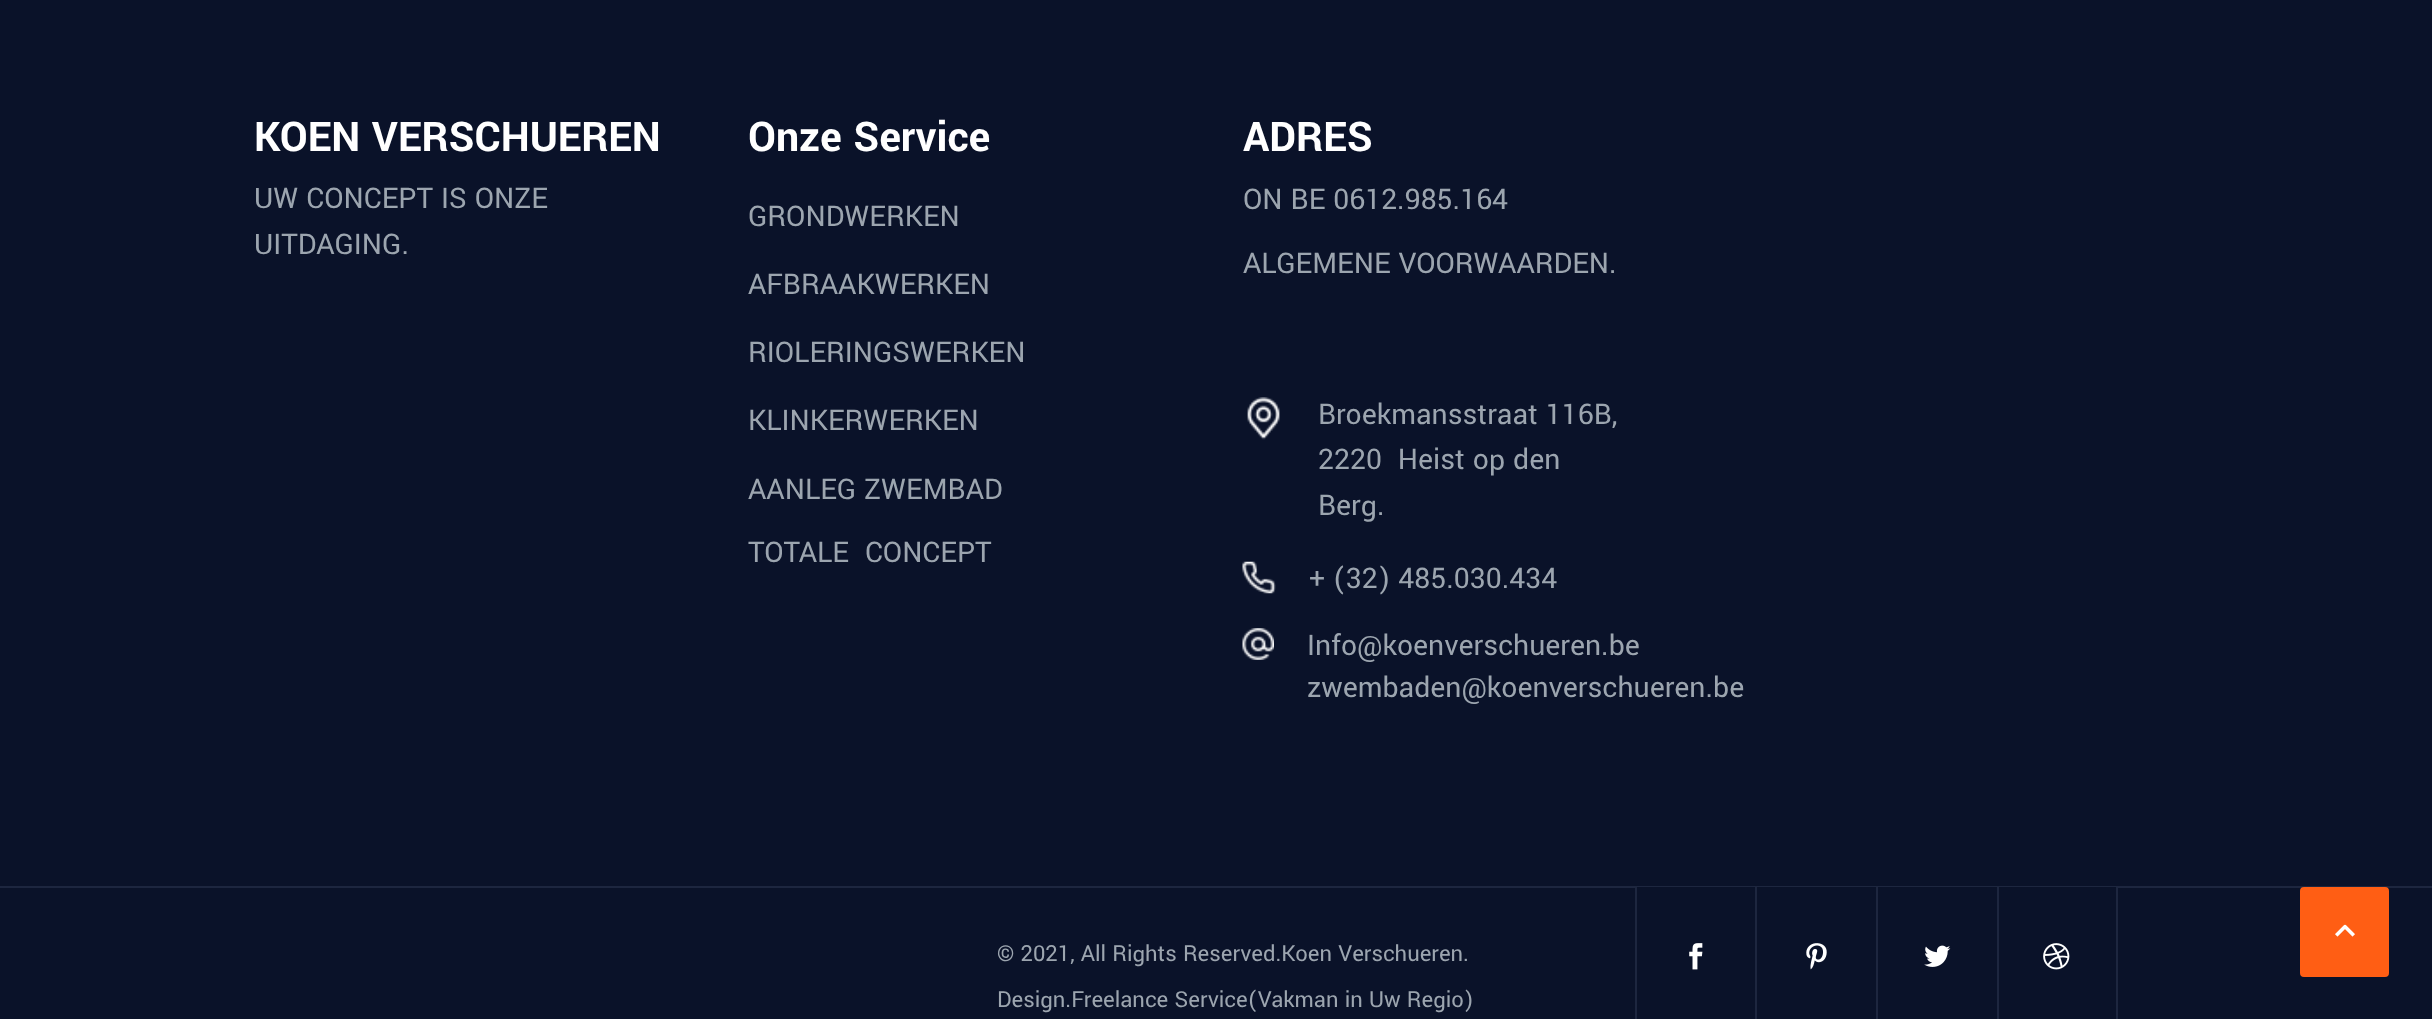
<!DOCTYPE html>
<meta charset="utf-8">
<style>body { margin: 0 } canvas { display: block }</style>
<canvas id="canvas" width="2432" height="1019"></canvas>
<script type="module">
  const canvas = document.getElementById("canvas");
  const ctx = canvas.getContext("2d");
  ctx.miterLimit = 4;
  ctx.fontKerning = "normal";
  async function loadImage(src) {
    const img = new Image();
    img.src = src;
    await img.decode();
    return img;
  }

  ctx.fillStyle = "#0a1229";
  ctx.fillRect(0, 0, 2432, 1019);
  ctx.font = "bold 45.5px Yantramanav";
  ctx.fillStyle = "#ffffff";
  ctx.fillText("KOEN VERSCHUEREN", 254, 151);
  ctx.font = "31.5px Yantramanav";
  ctx.fillStyle = "#9ca5af";
  ctx.fillText("UW CONCEPT IS ONZE", 254, 208);
  ctx.fillText("UITDAGING.", 254, 254);
  ctx.font = "bold 45.5px Yantramanav";
  ctx.fillStyle = "#ffffff";
  ctx.fillText("Onze Service", 748, 151);
  ctx.font = "31.5px Yantramanav";
  ctx.fillStyle = "#9ca5af";
  ctx.fillText("GRONDWERKEN", 748, 226);
  ctx.fillText("AFBRAAKWERKEN", 748, 294);
  ctx.fillText("RIOLERINGSWERKEN", 748, 362);
  ctx.fillText("KLINKERWERKEN", 748, 430);
  ctx.fillText("AANLEG ZWEMBAD", 748, 499);
  ctx.fillText("TOTALE  CONCEPT", 748, 562);
  ctx.font = "bold 45.5px Yantramanav";
  ctx.fillStyle = "#ffffff";
  ctx.fillText("ADRES", 1243, 151);
  ctx.font = "31.5px Yantramanav";
  ctx.fillStyle = "#9ca5af";
  ctx.fillText("ON BE 0612.985.164", 1243, 209);
  ctx.fillText("ALGEMENE VOORWAARDEN.", 1243, 273);
  ctx.drawImage(await loadImage("img1.png"), 1247, 397, 33, 43);
  ctx.fillText("Broekmansstraat 116B,", 1318, 424);
  ctx.fillText("2220  Heist op den", 1318, 469);
  ctx.fillText("Berg.", 1318, 515);
  ctx.drawImage(await loadImage("img2.png"), 1242, 561, 34, 33);
  ctx.fillText("+ (32) 485.030.434", 1309, 588);
  ctx.drawImage(await loadImage("img3.png"), 1242, 628, 32, 32);
  ctx.fillText("Info@koenverschueren.be", 1307, 655);
  ctx.fillText("zwembaden@koenverschueren.be", 1307, 697);
  ctx.fillStyle = "#1d263f";
  ctx.fillRect(0, 886, 2432, 2);
  ctx.font = "24.5px Yantramanav";
  ctx.fillStyle = "#9ca5af";
  ctx.fillText("© 2021, All Rights Reserved.Koen Verschueren.", 997, 961);
  ctx.fillText("Design.Freelance Service(Vakman in Uw Regio)", 997, 1007);
  ctx.fillStyle = "#0a1229";
  ctx.fillRect(1637, 887, 118, 1);
  ctx.fillStyle = "#1d263f";
  ctx.fillRect(1635, 887, 2, 132);
  ctx.drawImage(await loadImage("img4.png"), 1689, 943, 14, 27);
  ctx.fillStyle = "#0a1229";
  ctx.fillRect(1757, 887, 119, 1);
  ctx.fillStyle = "#1d263f";
  ctx.fillRect(1755, 887, 2, 132);
  ctx.drawImage(await loadImage("img5.png"), 1806, 943, 21, 27);
  ctx.fillStyle = "#0a1229";
  ctx.fillRect(1878, 887, 119, 1);
  ctx.fillStyle = "#1d263f";
  ctx.fillRect(1876, 887, 2, 132);
  ctx.drawImage(await loadImage("img6.png"), 1924, 945, 27, 22);
  ctx.fillStyle = "#0a1229";
  ctx.fillRect(1999, 887, 117, 1);
  ctx.fillStyle = "#1d263f";
  ctx.fillRect(2116, 887, 2, 132);
  ctx.fillRect(1997, 887, 2, 132);
  ctx.drawImage(await loadImage("img7.png"), 2043, 943, 27, 27);
  ctx.fillStyle = "#ff5e14";
  ctx.beginPath();
  ctx.roundRect(2301, 888, 87, 88, 3);
  ctx.fill();
  ctx.strokeStyle = "#ff5e14";
  ctx.lineWidth = 2;
  ctx.stroke();
  ctx.drawImage(await loadImage("img8.png"), 2335, 924, 20, 13);
</script>
